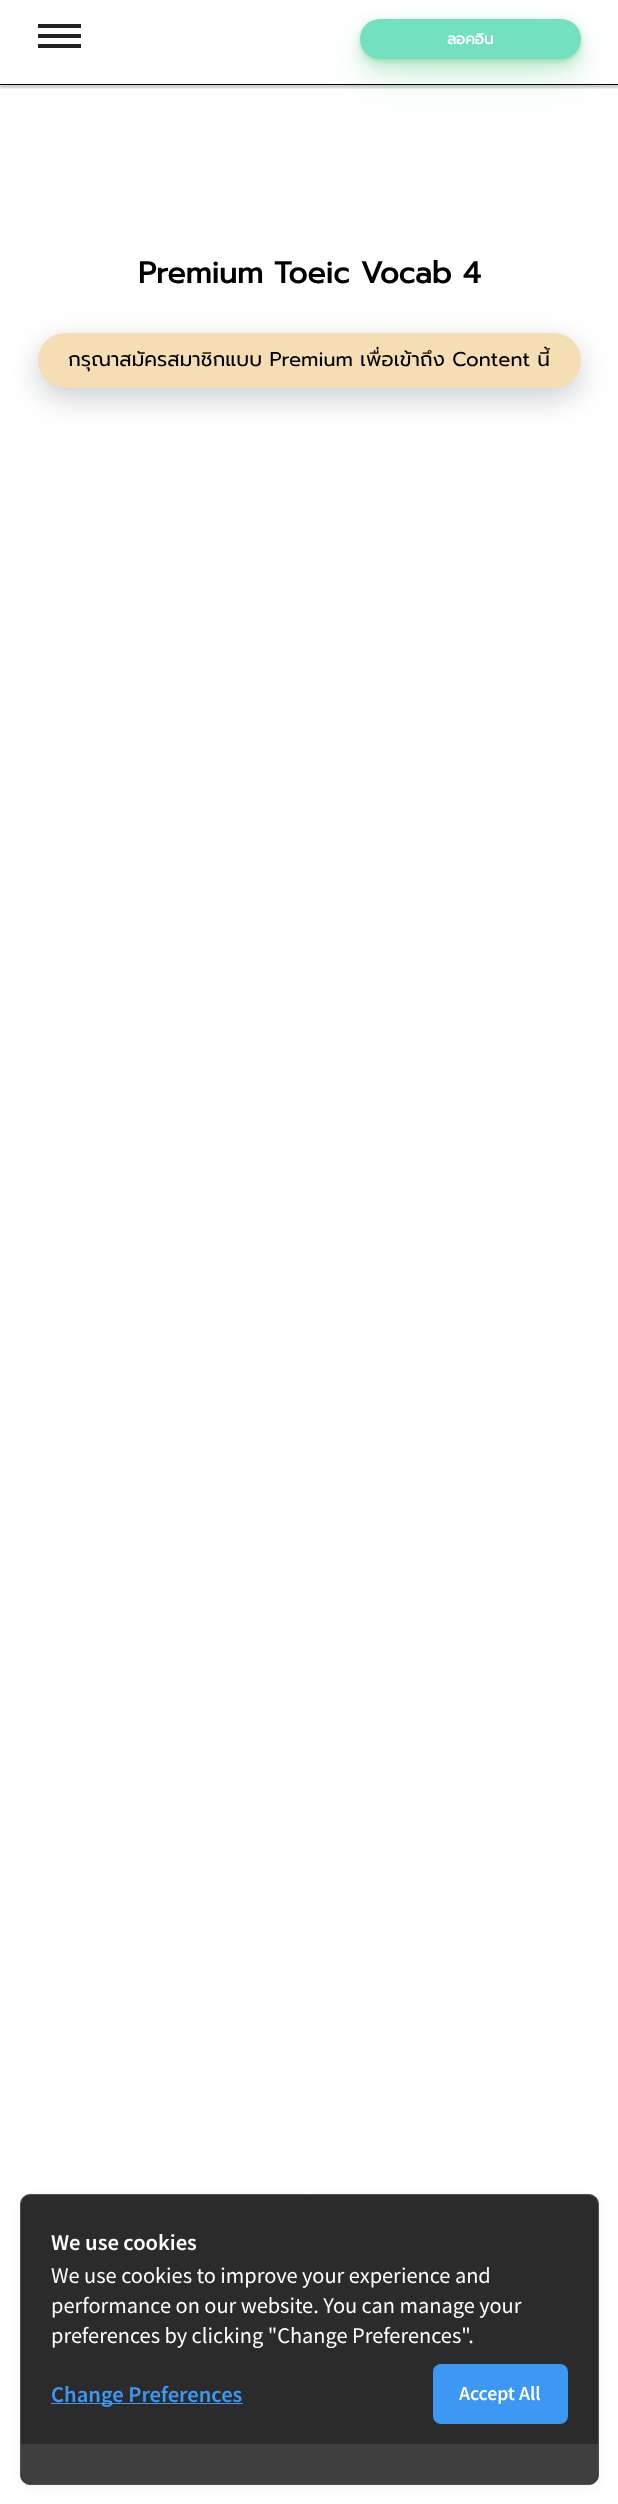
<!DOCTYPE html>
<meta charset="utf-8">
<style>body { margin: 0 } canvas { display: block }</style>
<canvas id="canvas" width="618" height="2504"></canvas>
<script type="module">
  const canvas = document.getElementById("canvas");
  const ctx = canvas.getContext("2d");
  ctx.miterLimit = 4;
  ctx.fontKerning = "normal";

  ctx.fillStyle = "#ffffff";
  ctx.fillRect(0, 0, 618, 2504);
  ctx.fillStyle = "#222222";
  ctx.fillRect(38, 24, 43, 4);
  ctx.fillRect(38, 34, 43, 4);
  ctx.fillRect(38, 44, 43, 4);
  ctx.save();
  ctx.beginPath();
  ctx.rect(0, 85, 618, 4);
  ctx.clip();
  ctx.fillStyle = "rgba(0, 0, 0, 0.2)";
  ctx.filter = "blur(1px)";
  ctx.beginPath();
  ctx.rect(0, 74, 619, 14);
  ctx.fill();
  ctx.filter = "none";
  ctx.restore();
  ctx.fillStyle = "#000000";
  ctx.fillRect(0, 84, 618, 1);
  ctx.fillStyle = "rgba(44, 187, 99, 0.15)";
  ctx.filter = "blur(20px)";
  ctx.beginPath();
  ctx.roundRect(360, 39, 221, 40, 20);
  ctx.fill();
  ctx.filter = "none";
  ctx.filter = "blur(10px)";
  ctx.beginPath();
  ctx.roundRect(360, 29, 221, 40, 20);
  ctx.fill();
  ctx.filter = "none";
  ctx.filter = "blur(5px)";
  ctx.beginPath();
  ctx.roundRect(360, 24, 221, 40, 20);
  ctx.fill();
  ctx.filter = "none";
  ctx.filter = "blur(2.5px)";
  ctx.beginPath();
  ctx.roundRect(360, 21, 221, 40, 20);
  ctx.fill();
  ctx.filter = "none";
  ctx.filter = "blur(1px)";
  ctx.beginPath();
  ctx.roundRect(360, 20, 221, 40, 20);
  ctx.fill();
  ctx.filter = "none";
  ctx.fillStyle = "#73e1c0";
  ctx.beginPath();
  ctx.roundRect(360, 19, 221, 40, 20);
  ctx.fill();
  ctx.font = "bold 15px Prompt";
  ctx.fillStyle = "#ffffff";
  ctx.fillText("ลอคอิน", 447, 44);
  ctx.font = "bold 30px Prompt";
  ctx.fillStyle = "#000000";
  ctx.fillText("Premium Toeic Vocab 4", 138, 283);
  ctx.fillStyle = "rgba(150, 158, 166, 0.5)";
  ctx.filter = "blur(15px)";
  ctx.beginPath();
  ctx.roundRect(38, 343, 543, 55, 27.5);
  ctx.fill();
  ctx.filter = "none";
  ctx.fillStyle = "#f5deb3";
  ctx.beginPath();
  ctx.roundRect(38, 333, 543, 55, 27.5);
  ctx.fill();
  ctx.font = "20px Prompt";
  ctx.fillStyle = "#000000";
  ctx.fillText("กรุณาสมัครสมาชิกแบบ Premium เพื่อเข้าถึง Content นี้", 68, 366);
  ctx.fillStyle = "rgba(0, 0, 0, 0.05)";
  ctx.filter = "blur(5px)";
  ctx.beginPath();
  ctx.roundRect(20, 2196, 579, 292, 10);
  ctx.fill();
  ctx.filter = "none";
  ctx.fillStyle = "#2b2b2b";
  ctx.beginPath();
  ctx.roundRect(20.5, 2194.5, 578, 290, 9.5);
  ctx.fill();
  ctx.strokeStyle = "#505050";
  ctx.stroke();
  ctx.font = "600 20px Noto Sans JP";
  ctx.fillStyle = "#ffffff";
  ctx.fillText("We use cookies", 51, 2250);
  ctx.font = "20px Noto Sans JP";
  ctx.fillText("We use cookies to improve your experience and", 51, 2283);
  ctx.fillText("performance on our website. You can manage your", 51, 2313);
  ctx.fillText("preferences by clicking \"Change Preferences\".", 51, 2343);
  ctx.fillStyle = "#3d98f3";
  ctx.fillRect(51, 2403, 192, 1);
  ctx.font = "600 20px Noto Sans JP";
  ctx.fillText("Change Preferences", 51, 2402);
  ctx.beginPath();
  ctx.roundRect(433, 2364, 135, 60, 8);
  ctx.fill();
  ctx.font = "600 17.5px Noto Sans JP";
  ctx.fillStyle = "#ffffff";
  ctx.fillText("Accept All", 459, 2400);
  ctx.fillStyle = "#3f3f3f";
  ctx.beginPath();
  ctx.roundRect(21, 2444, 577, 40, [0, 0, 10, 10]);
  ctx.fill();
</script>
